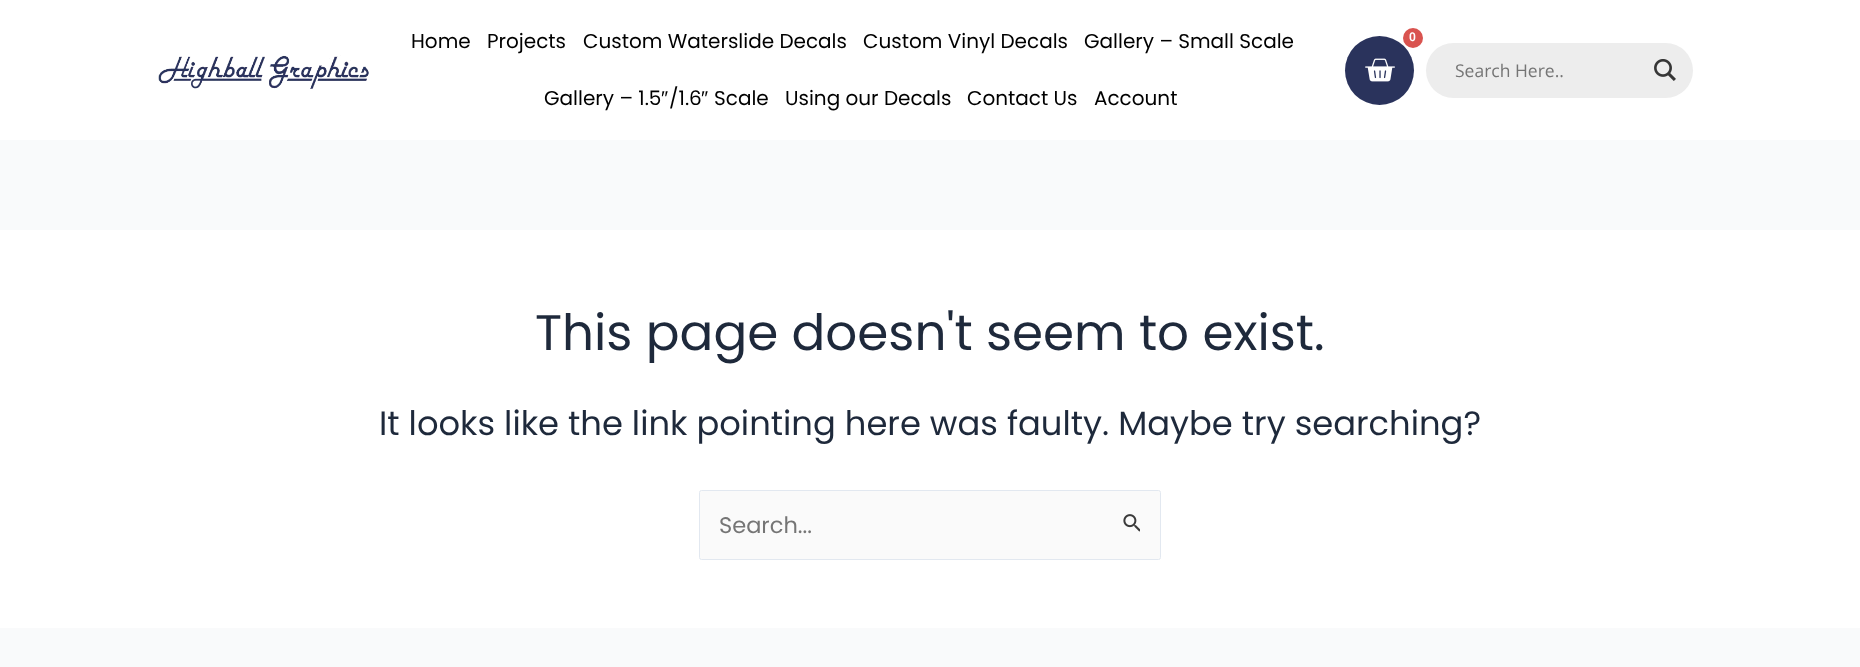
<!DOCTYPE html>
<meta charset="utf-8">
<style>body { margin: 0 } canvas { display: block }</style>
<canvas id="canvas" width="1860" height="667"></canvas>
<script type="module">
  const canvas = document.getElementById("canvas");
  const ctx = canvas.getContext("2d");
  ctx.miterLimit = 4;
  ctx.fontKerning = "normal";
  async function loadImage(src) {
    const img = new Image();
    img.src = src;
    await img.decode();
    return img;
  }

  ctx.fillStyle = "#f9fafb";
  ctx.fillRect(0, 0, 1860, 667);
  ctx.fillStyle = "#ffffff";
  ctx.fillRect(0, 0, 1860, 140);
  ctx.drawImage(await loadImage("img1.png"), 158, 55, 211, 34);
  ctx.font = "20px Poppins";
  ctx.fillStyle = "#000000";
  ctx.fillText("Home", 411, 48);
  ctx.fillText("Projects", 487, 48);
  ctx.fillText("Custom Waterslide Decals", 583, 48);
  ctx.fillText("Custom Vinyl Decals", 863, 48);
  ctx.fillText("Gallery – Small Scale", 1084, 48);
  ctx.fillText("Gallery – 1.5", 544, 105);
  ctx.font = "20px Liberation Sans";
  ctx.fillText("″", 661, 105);
  ctx.font = "20px Poppins";
  ctx.fillText("/1.6", 669, 105);
  ctx.font = "20px Liberation Sans";
  ctx.fillText("″", 701, 105);
  ctx.font = "20px Poppins";
  ctx.fillText("Scale", 714, 105);
  ctx.fillText("Using our Decals", 785, 105);
  ctx.fillText("Contact Us", 967, 105);
  ctx.fillText("Account", 1094, 105);
  ctx.fillStyle = "#2a335c";
  ctx.beginPath();
  ctx.arc(1379.5, 70.5, 34.5, 0, Math.PI * 2);
  ctx.fill();
  ctx.fillStyle = "#d9534f";
  ctx.beginPath();
  ctx.arc(1413, 38, 10, 0, Math.PI * 2);
  ctx.fill();
  ctx.font = "600 12px Roboto";
  ctx.fillStyle = "#ffffff";
  ctx.fillText("0", 1409, 41);
  ctx.drawImage(await loadImage("img2.png"), 1365, 58, 30, 24);
  ctx.fillStyle = "#ededed";
  ctx.beginPath();
  ctx.roundRect(1426, 43, 267, 55, 27.5);
  ctx.fill();
  ctx.font = "17.5px Open Sans";
  ctx.fillStyle = "#757575";
  ctx.fillText("Search Here..", 1455, 77);
  ctx.drawImage(await loadImage("img3.png"), 1654, 59, 22, 22);
  ctx.fillStyle = "#ffffff";
  ctx.fillRect(0, 230, 1860, 398);
  ctx.font = "50px Poppins";
  ctx.fillStyle = "#1e293b";
  ctx.fillText("This page doesn't seem to exist.", 535, 350);
  ctx.font = "33.75px Poppins";
  ctx.fillText("It looks like the link pointing here was faulty. Maybe try searching?", 379, 435);
  ctx.fillStyle = "#fafafa";
  ctx.beginPath();
  ctx.roundRect(699.5, 490.5, 461, 69, 2);
  ctx.fill();
  ctx.strokeStyle = "#e2e8f0";
  ctx.stroke();
  ctx.font = "22.5px Poppins";
  ctx.fillStyle = "#757575";
  ctx.fillText("Search...", 719, 533);
  ctx.drawImage(await loadImage("img4.png"), 1123, 514, 17, 18);
</script>
